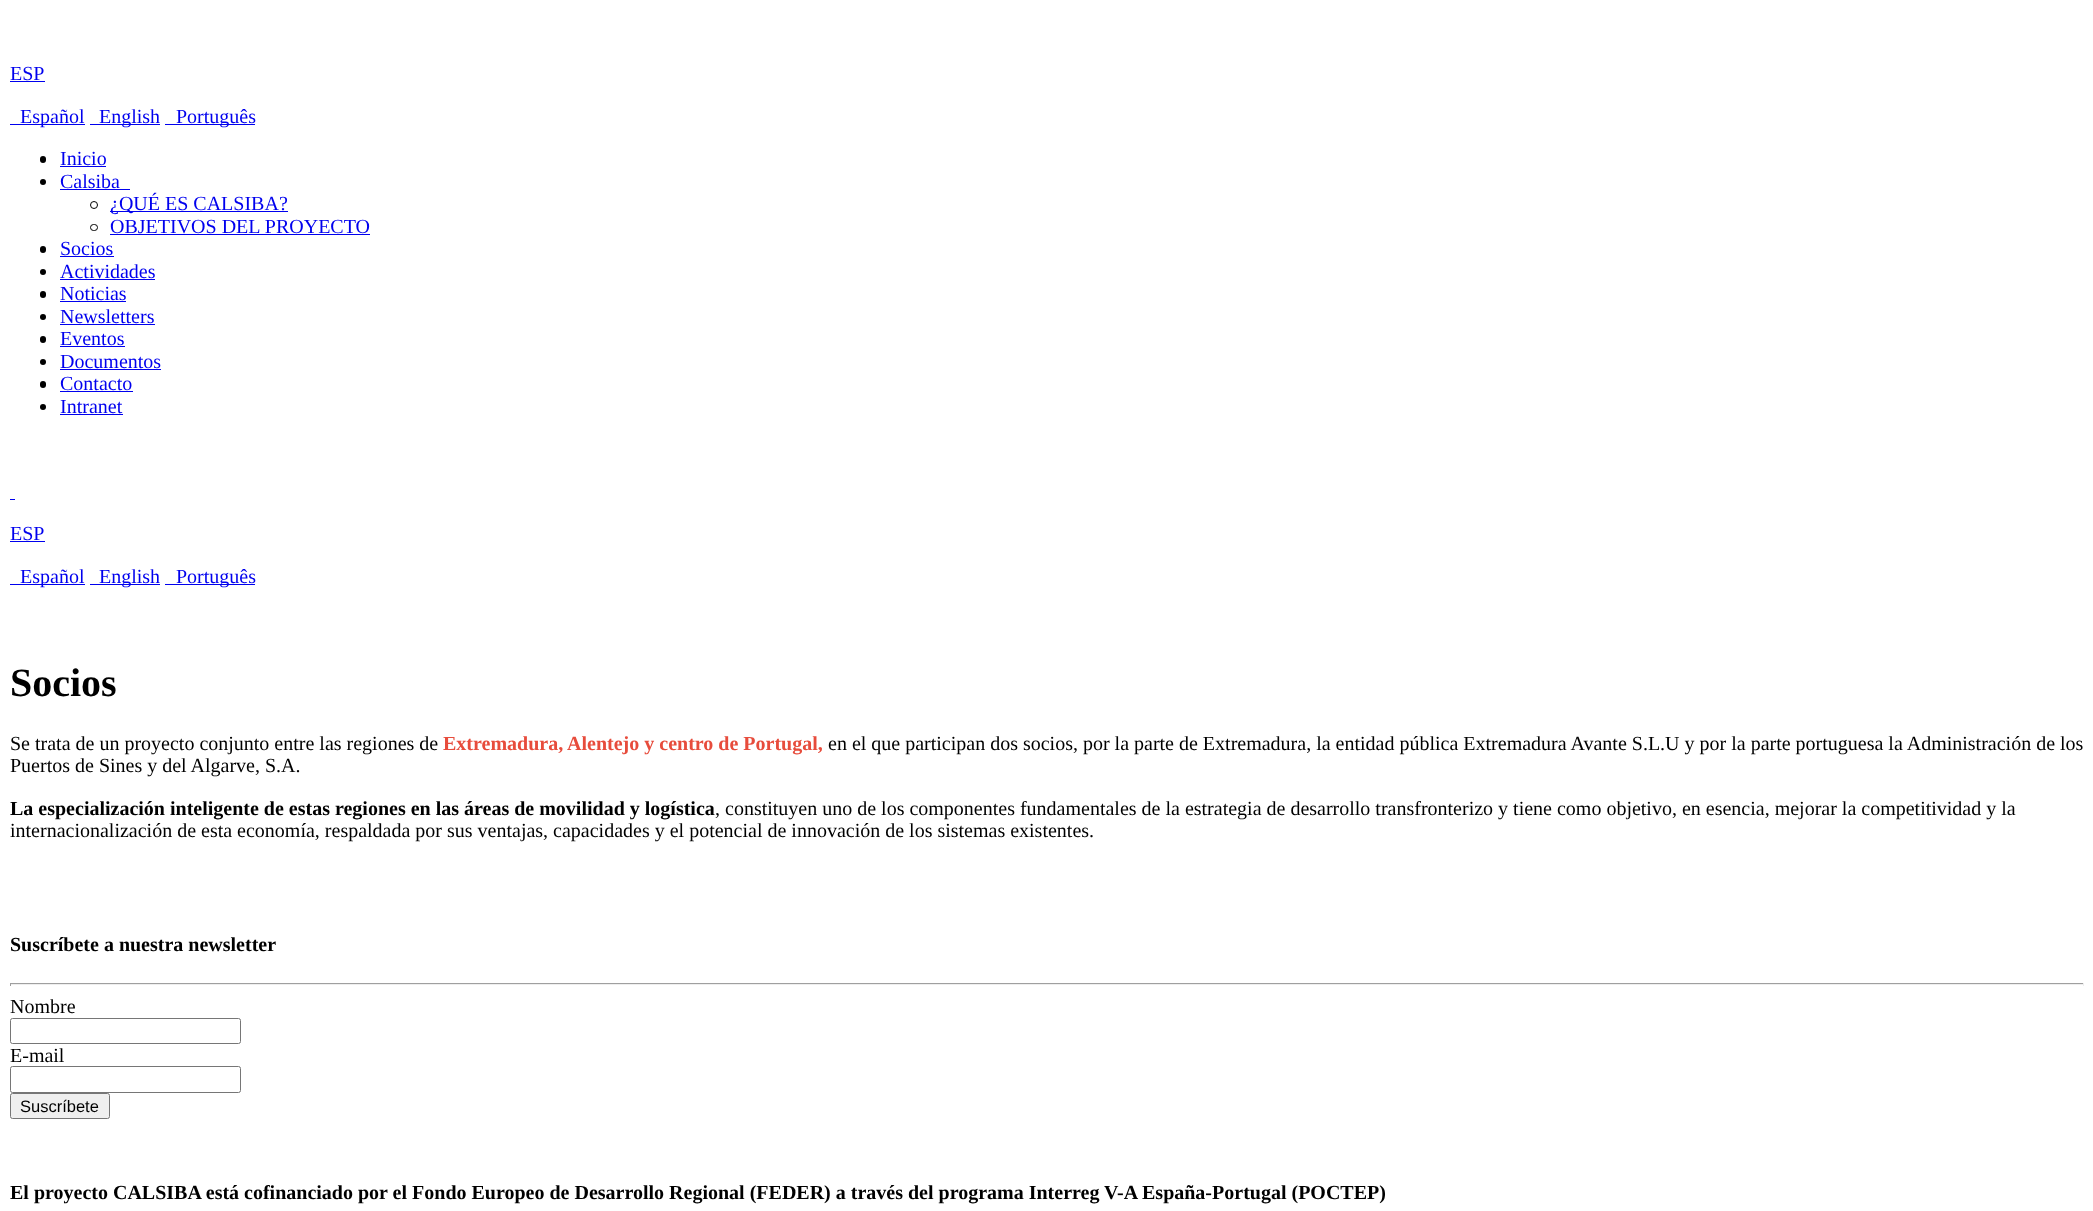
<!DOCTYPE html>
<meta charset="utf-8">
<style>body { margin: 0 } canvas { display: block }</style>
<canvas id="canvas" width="2093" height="1211"></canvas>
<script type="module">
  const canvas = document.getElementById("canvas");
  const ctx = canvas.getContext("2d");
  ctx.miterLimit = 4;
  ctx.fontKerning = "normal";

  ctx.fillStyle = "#ffffff";
  ctx.fillRect(0, 0, 2093, 1211);
  ctx.font = "20px Liberation Serif";
  ctx.fillStyle = "#0000ee";
  ctx.fillText("ESP", 10, 80);
  ctx.fillRect(10, 81, 35, 1);
  ctx.fillRect(10, 124, 75, 1);
  ctx.fillText("Español", 20, 123);
  ctx.fillRect(90, 124, 70, 1);
  ctx.fillText("English", 99, 123);
  ctx.fillRect(165, 124, 90, 1);
  ctx.fillText("Português", 176, 123);
  ctx.fillStyle = "#000000";
  ctx.beginPath();
  ctx.roundRect(40, 156, 6, 7, 3);
  ctx.fill();
  ctx.fillStyle = "#0000ee";
  ctx.fillText("Inicio", 60, 165);
  ctx.fillRect(60, 166, 46, 1);
  ctx.fillStyle = "#000000";
  ctx.beginPath();
  ctx.arc(43, 182, 3, 0, Math.PI * 2);
  ctx.fill();
  ctx.fillStyle = "#0000ee";
  ctx.fillText("Calsiba", 60, 188);
  ctx.fillRect(60, 189, 70, 1);
  ctx.beginPath();
  ctx.arc(94, 205, 3.5, 0, Math.PI * 2);
  ctx.strokeStyle = "#000000";
  ctx.stroke();
  ctx.fillRect(110, 211, 178, 1);
  ctx.fillText("¿QUÉ ES CALSIBA?", 110, 210);
  ctx.beginPath();
  ctx.roundRect(90.5, 224.5, 7, 6, 3);
  ctx.stroke();
  ctx.fillText("OBJETIVOS DEL PROYECTO", 110, 233);
  ctx.fillRect(110, 234, 260, 1);
  ctx.fillStyle = "#000000";
  ctx.beginPath();
  ctx.roundRect(40, 246, 6, 7, 3);
  ctx.fill();
  ctx.fillStyle = "#0000ee";
  ctx.fillText("Socios", 60, 255);
  ctx.fillRect(60, 256, 54, 1);
  ctx.fillStyle = "#000000";
  ctx.beginPath();
  ctx.arc(43, 272, 3, 0, Math.PI * 2);
  ctx.fill();
  ctx.fillStyle = "#0000ee";
  ctx.fillText("Actividades", 60, 278);
  ctx.fillRect(60, 279, 95, 1);
  ctx.fillStyle = "#000000";
  ctx.beginPath();
  ctx.roundRect(40, 291, 6, 7, 3);
  ctx.fill();
  ctx.fillStyle = "#0000ee";
  ctx.fillText("Noticias", 60, 300);
  ctx.fillRect(60, 301, 66, 1);
  ctx.fillStyle = "#000000";
  ctx.beginPath();
  ctx.arc(43, 317, 3, 0, Math.PI * 2);
  ctx.fill();
  ctx.fillStyle = "#0000ee";
  ctx.fillText("Newsletters", 60, 323);
  ctx.fillRect(60, 324, 95, 1);
  ctx.fillStyle = "#000000";
  ctx.beginPath();
  ctx.roundRect(40, 336, 6, 7, 3);
  ctx.fill();
  ctx.fillStyle = "#0000ee";
  ctx.fillText("Eventos", 60, 345);
  ctx.fillRect(60, 346, 65, 1);
  ctx.fillStyle = "#000000";
  ctx.beginPath();
  ctx.arc(43, 362, 3, 0, Math.PI * 2);
  ctx.fill();
  ctx.fillStyle = "#0000ee";
  ctx.fillText("Documentos", 60, 368);
  ctx.fillRect(60, 369, 101, 1);
  ctx.fillStyle = "#000000";
  ctx.beginPath();
  ctx.roundRect(40, 381, 6, 7, 3);
  ctx.fill();
  ctx.fillStyle = "#0000ee";
  ctx.fillText("Contacto", 60, 390);
  ctx.fillRect(60, 391, 73, 1);
  ctx.fillStyle = "#000000";
  ctx.beginPath();
  ctx.arc(43, 407, 3, 0, Math.PI * 2);
  ctx.fill();
  ctx.fillStyle = "#0000ee";
  ctx.fillText("Intranet", 60, 413);
  ctx.fillRect(60, 414, 63, 1);
  ctx.fillRect(10, 499, 5, 1);
  ctx.fillText("ESP", 10, 540);
  ctx.fillRect(10, 541, 35, 1);
  ctx.fillRect(10, 584, 75, 1);
  ctx.fillText("Español", 20, 583);
  ctx.fillRect(90, 584, 70, 1);
  ctx.fillText("English", 99, 583);
  ctx.fillRect(165, 584, 90, 1);
  ctx.fillText("Português", 176, 583);
  ctx.font = "bold 40px Liberation Serif";
  ctx.fillStyle = "#000000";
  ctx.fillText("Socios", 10, 696);
  ctx.font = "20px Liberation Serif";
  ctx.fillText("Se trata de un proyecto conjunto entre las regiones de", 10, 750);
  ctx.font = "bold 20px Liberation Serif";
  ctx.fillStyle = "#e74c3c";
  ctx.fillText("Extremadura, Alentejo y centro de Portugal,", 443, 750);
  ctx.font = "20px Liberation Serif";
  ctx.fillStyle = "#000000";
  ctx.fillText("en el que participan dos socios, por la parte de Extremadura, la entidad pública Extremadura Avante S.L.U y por la parte portuguesa la Administración de los", 828, 750);
  ctx.fillText("Puertos de Sines y del Algarve, S.A.", 10, 772);
  ctx.font = "bold 20px Liberation Serif";
  ctx.fillText("La especialización inteligente de estas regiones en las áreas de movilidad y logística", 10, 815);
  ctx.font = "20px Liberation Serif";
  ctx.fillText(", constituyen uno de los componentes fundamentales de la estrategia de desarrollo transfronterizo y tiene como objetivo, en esencia, mejorar la competitividad y la", 715, 815);
  ctx.fillText("internacionalización de esta economía, respaldada por sus ventajas, capacidades y el potencial de innovación de los sistemas existentes.", 10, 837);
  ctx.font = "bold 20px Liberation Serif";
  ctx.fillText("Suscríbete a nuestra newsletter", 10, 951);
  ctx.fillStyle = "#9f9f9f";
  ctx.fillRect(10, 983, 2074, 1);
  ctx.fillStyle = "#eeeeee";
  ctx.fillRect(2083, 983, 1, 3);
  ctx.fillRect(10, 984, 2074, 1);
  ctx.fillStyle = "#9f9f9f";
  ctx.fillRect(10, 983, 1, 3);
  ctx.font = "20px Liberation Serif";
  ctx.fillStyle = "#000000";
  ctx.fillText("Nombre", 10, 1013);
  ctx.beginPath();
  ctx.roundRect(10.5, 1018.5, 230, 25, 2);
  ctx.strokeStyle = "#767676";
  ctx.stroke();
  ctx.fillText("E-mail", 10, 1062);
  ctx.beginPath();
  ctx.roundRect(10.5, 1066.5, 230, 26, 2);
  ctx.stroke();
  ctx.fillStyle = "#efefef";
  ctx.beginPath();
  ctx.roundRect(10.5, 1093.5, 99, 25, 2);
  ctx.fill();
  ctx.stroke();
  ctx.font = "16.5px Liberation Sans";
  ctx.fillStyle = "#000000";
  ctx.fillText("Suscríbete", 20, 1112);
  ctx.font = "bold 20px Liberation Serif";
  ctx.fillText("El proyecto CALSIBA está cofinanciado por el Fondo Europeo de Desarrollo Regional (FEDER) a través del programa Interreg V-A España-Portugal (POCTEP)", 10, 1199);
</script>
